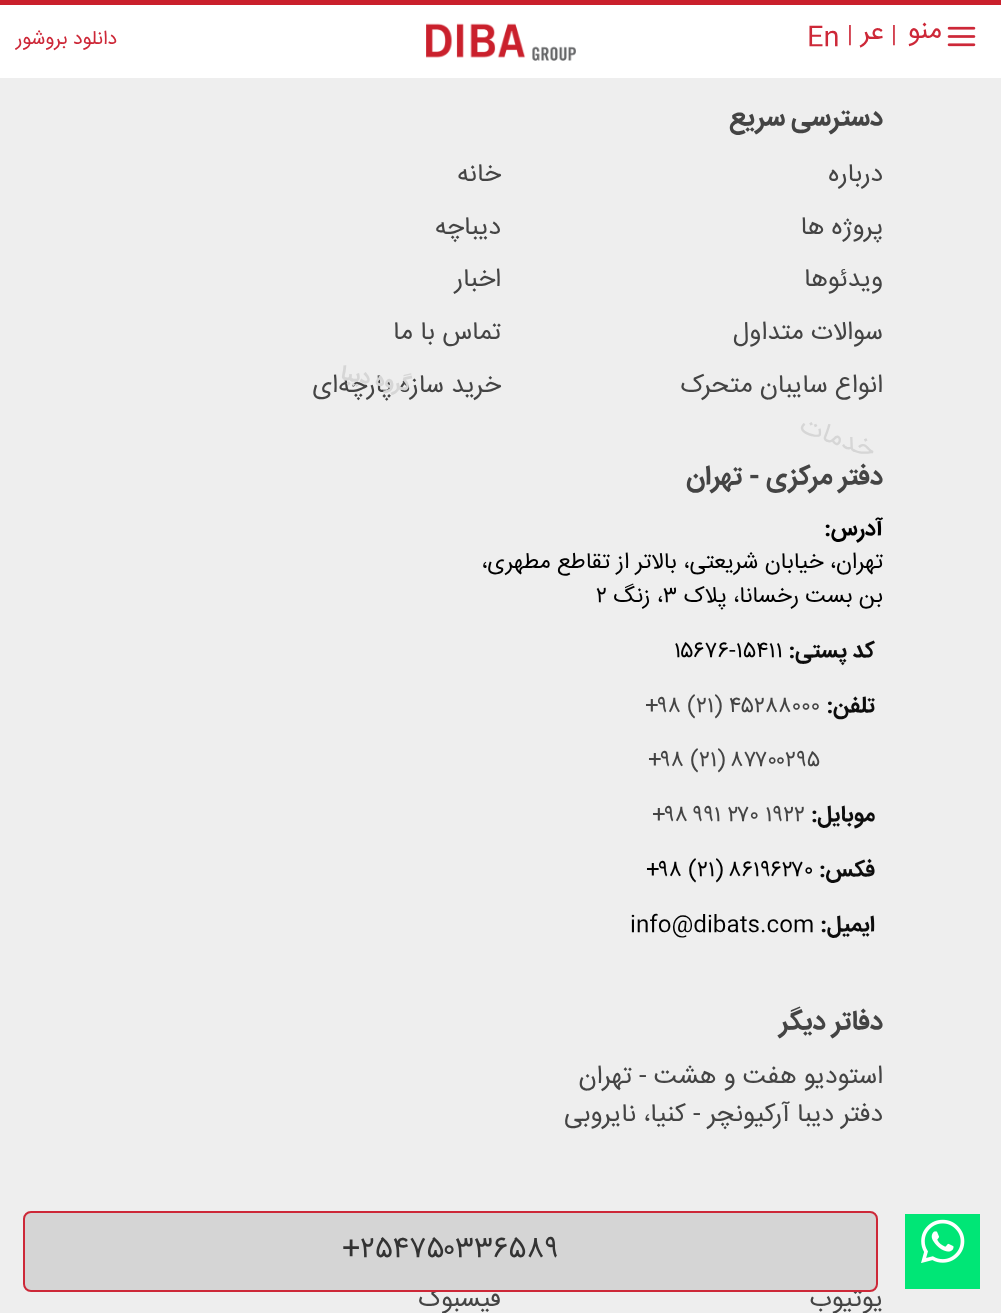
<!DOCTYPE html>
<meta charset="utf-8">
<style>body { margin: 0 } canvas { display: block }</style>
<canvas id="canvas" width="1001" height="1313"></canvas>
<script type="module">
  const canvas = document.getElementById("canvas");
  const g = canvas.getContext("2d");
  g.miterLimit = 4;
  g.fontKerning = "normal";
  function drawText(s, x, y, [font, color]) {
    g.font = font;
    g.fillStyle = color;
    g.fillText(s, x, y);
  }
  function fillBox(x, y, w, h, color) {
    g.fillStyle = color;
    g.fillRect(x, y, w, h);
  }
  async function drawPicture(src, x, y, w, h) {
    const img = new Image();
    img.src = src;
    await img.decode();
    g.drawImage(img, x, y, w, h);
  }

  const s1 = ["27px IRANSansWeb", "#CD2838"];
  const s2 = ["22.5px IRANSansWeb", "#CD2838"];
  const s3 = ["25.5px IRANSansWeb", "#444444"];
  const s4 = ["bold 27px IRANSansWeb", "#444444"];
  const s5 = ["19.5px IRANSansWeb", "#CD2838"];
  const s6 = ["bold 22.5px IRANSansWeb", "#000000"];
  const s7 = ["22.5px IRANSansWeb", "#000000"];
  const s8 = ["bold 22.5px IRANSansWeb", "#0D0D0D"];
  const s9 = ["22.5px IRANSansWeb", "#444444"];
  const s10 = ["30px IRANSansWeb", "#333333"];

  fillBox(0, 0, 1001, 1313, "#EEEEEE");
  fillBox(905, 1214, 75, 75, "#00E676");
  await drawPicture("pic1.png", 921, 1219, 44, 44);
  fillBox(0, 5, 1001, 73, "#FFFFFF");
  fillBox(0, 0, 1001, 5, "#CA202C");
  await drawPicture("pic2.png", 947, 26, 29, 21);
  g.direction = "rtl";
  drawText("منو", 942, 38, s1);
  g.direction = "ltr";
  drawText("|", 891, 41, s2);
  g.direction = "rtl";
  drawText("عر", 884, 39, s1);
  g.direction = "ltr";
  drawText("|", 847, 41, s2);
  drawText("En", 807, 45, s1);
  g.direction = "rtl";
  drawText("خرید سازه پارچه‌ای", 501, 392, s3);
  g.letterSpacing = "1.5px";
  g.wordSpacing = "-1px";
  g.font = "bold 21px IRANSansWeb";
  g.fillStyle = "#D6D6D6";
  g.save();
  g.translate(410, 391);
  g.rotate(10 * Math.PI / 180);
  g.fillText("گروه دیبا", 0, 0);
  g.restore();
  g.letterSpacing = "0px";
  g.wordSpacing = "0px";
  drawText("دفتر مرکزی - تهران", 883, 484, s4);
  g.font = "27px IRANSansWeb";
  g.fillStyle = "#D6D6D6";
  g.save();
  g.translate(871, 458);
  g.rotate(20 * Math.PI / 180);
  g.fillText("خدمات", 0, 0);
  g.restore();
  await drawPicture("pic3.png", 426, 23, 150, 38);
  drawText("دانلود بروشور", 117, 44, s5);
  drawText("دسترسی سریع", 883, 125, s4);
  drawText("درباره", 883, 181, s3);
  drawText("خانه", 501, 181, s3);
  drawText("پروژه ها", 883, 234, s3);
  drawText("دیباچه", 501, 234, s3);
  drawText("ویدئوها", 883, 286, s3);
  drawText("اخبار", 501, 286, s3);
  drawText("سوالات متداول", 883, 339, s3);
  drawText("تماس با ما", 501, 339, s3);
  drawText("انواع سایبان متحرک", 883, 392, s3);
  drawText("آدرس:", 883, 535, s6);
  drawText("تهران، خیابان شریعتی، بالاتر از تقاطع مطهری،", 883, 568, s7);
  drawText("بن بست رخسانا، پلاک", 883, 602, s7);
  g.direction = "ltr";
  drawText("۳", 663, 602, s7);
  g.direction = "rtl";
  drawText("، زنگ", 663, 602, s7);
  g.direction = "ltr";
  drawText("۲", 596, 602, s7);
  g.direction = "rtl";
  drawText("کد پستی:", 875, 657, s8);
  g.direction = "ltr";
  drawText("۱۵۶۷۶-۱۵۴۱۱", 674, 657, s7);
  g.direction = "rtl";
  drawText("تلفن:", 875, 712, s8);
  g.direction = "ltr";
  drawText("+۹۸ (۲۱) ۴۵۲۸۸۰۰۰", 645, 712, s9);
  drawText("+۹۸ (۲۱) ۸۷۷۰۰۲۹۵", 648, 766, s9);
  g.direction = "rtl";
  drawText("موبایل:", 875, 821, s8);
  g.direction = "ltr";
  drawText("+۹۸ ۹۹۱ ۲۷۰ ۱۹۲۲", 652, 821, s9);
  g.direction = "rtl";
  drawText("فکس:", 875, 876, s8);
  g.direction = "ltr";
  drawText("+۹۸ (۲۱) ۸۶۱۹۶۲۷۰", 646, 876, s7);
  g.direction = "rtl";
  drawText("ایمیل:", 875, 931, s8);
  g.direction = "ltr";
  drawText("info@dibats.com", 630, 931, s7);
  g.direction = "rtl";
  drawText("دفاتر دیگر", 883, 1029, s4);
  drawText("استودیو هفت و هشت - تهران", 883, 1083, s3);
  drawText("دفتر دیبا آرکیونچر - کنیا، نایروبی", 883, 1121, s3);
  drawText("یوتیوب", 883, 1306, s3);
  drawText("فیسبوک", 501, 1306, s3);
  g.fillStyle = "#D5D5D5";
  g.beginPath();
  g.roundRect(24, 1212, 853, 79, 7);
  g.fill();
  g.strokeStyle = "#CD2838";
  g.lineWidth = 2;
  g.stroke();
  g.direction = "ltr";
  drawText("+۲۵۴۷۵۰۳۳۶۵۸۹", 342, 1257, s10);
</script>
